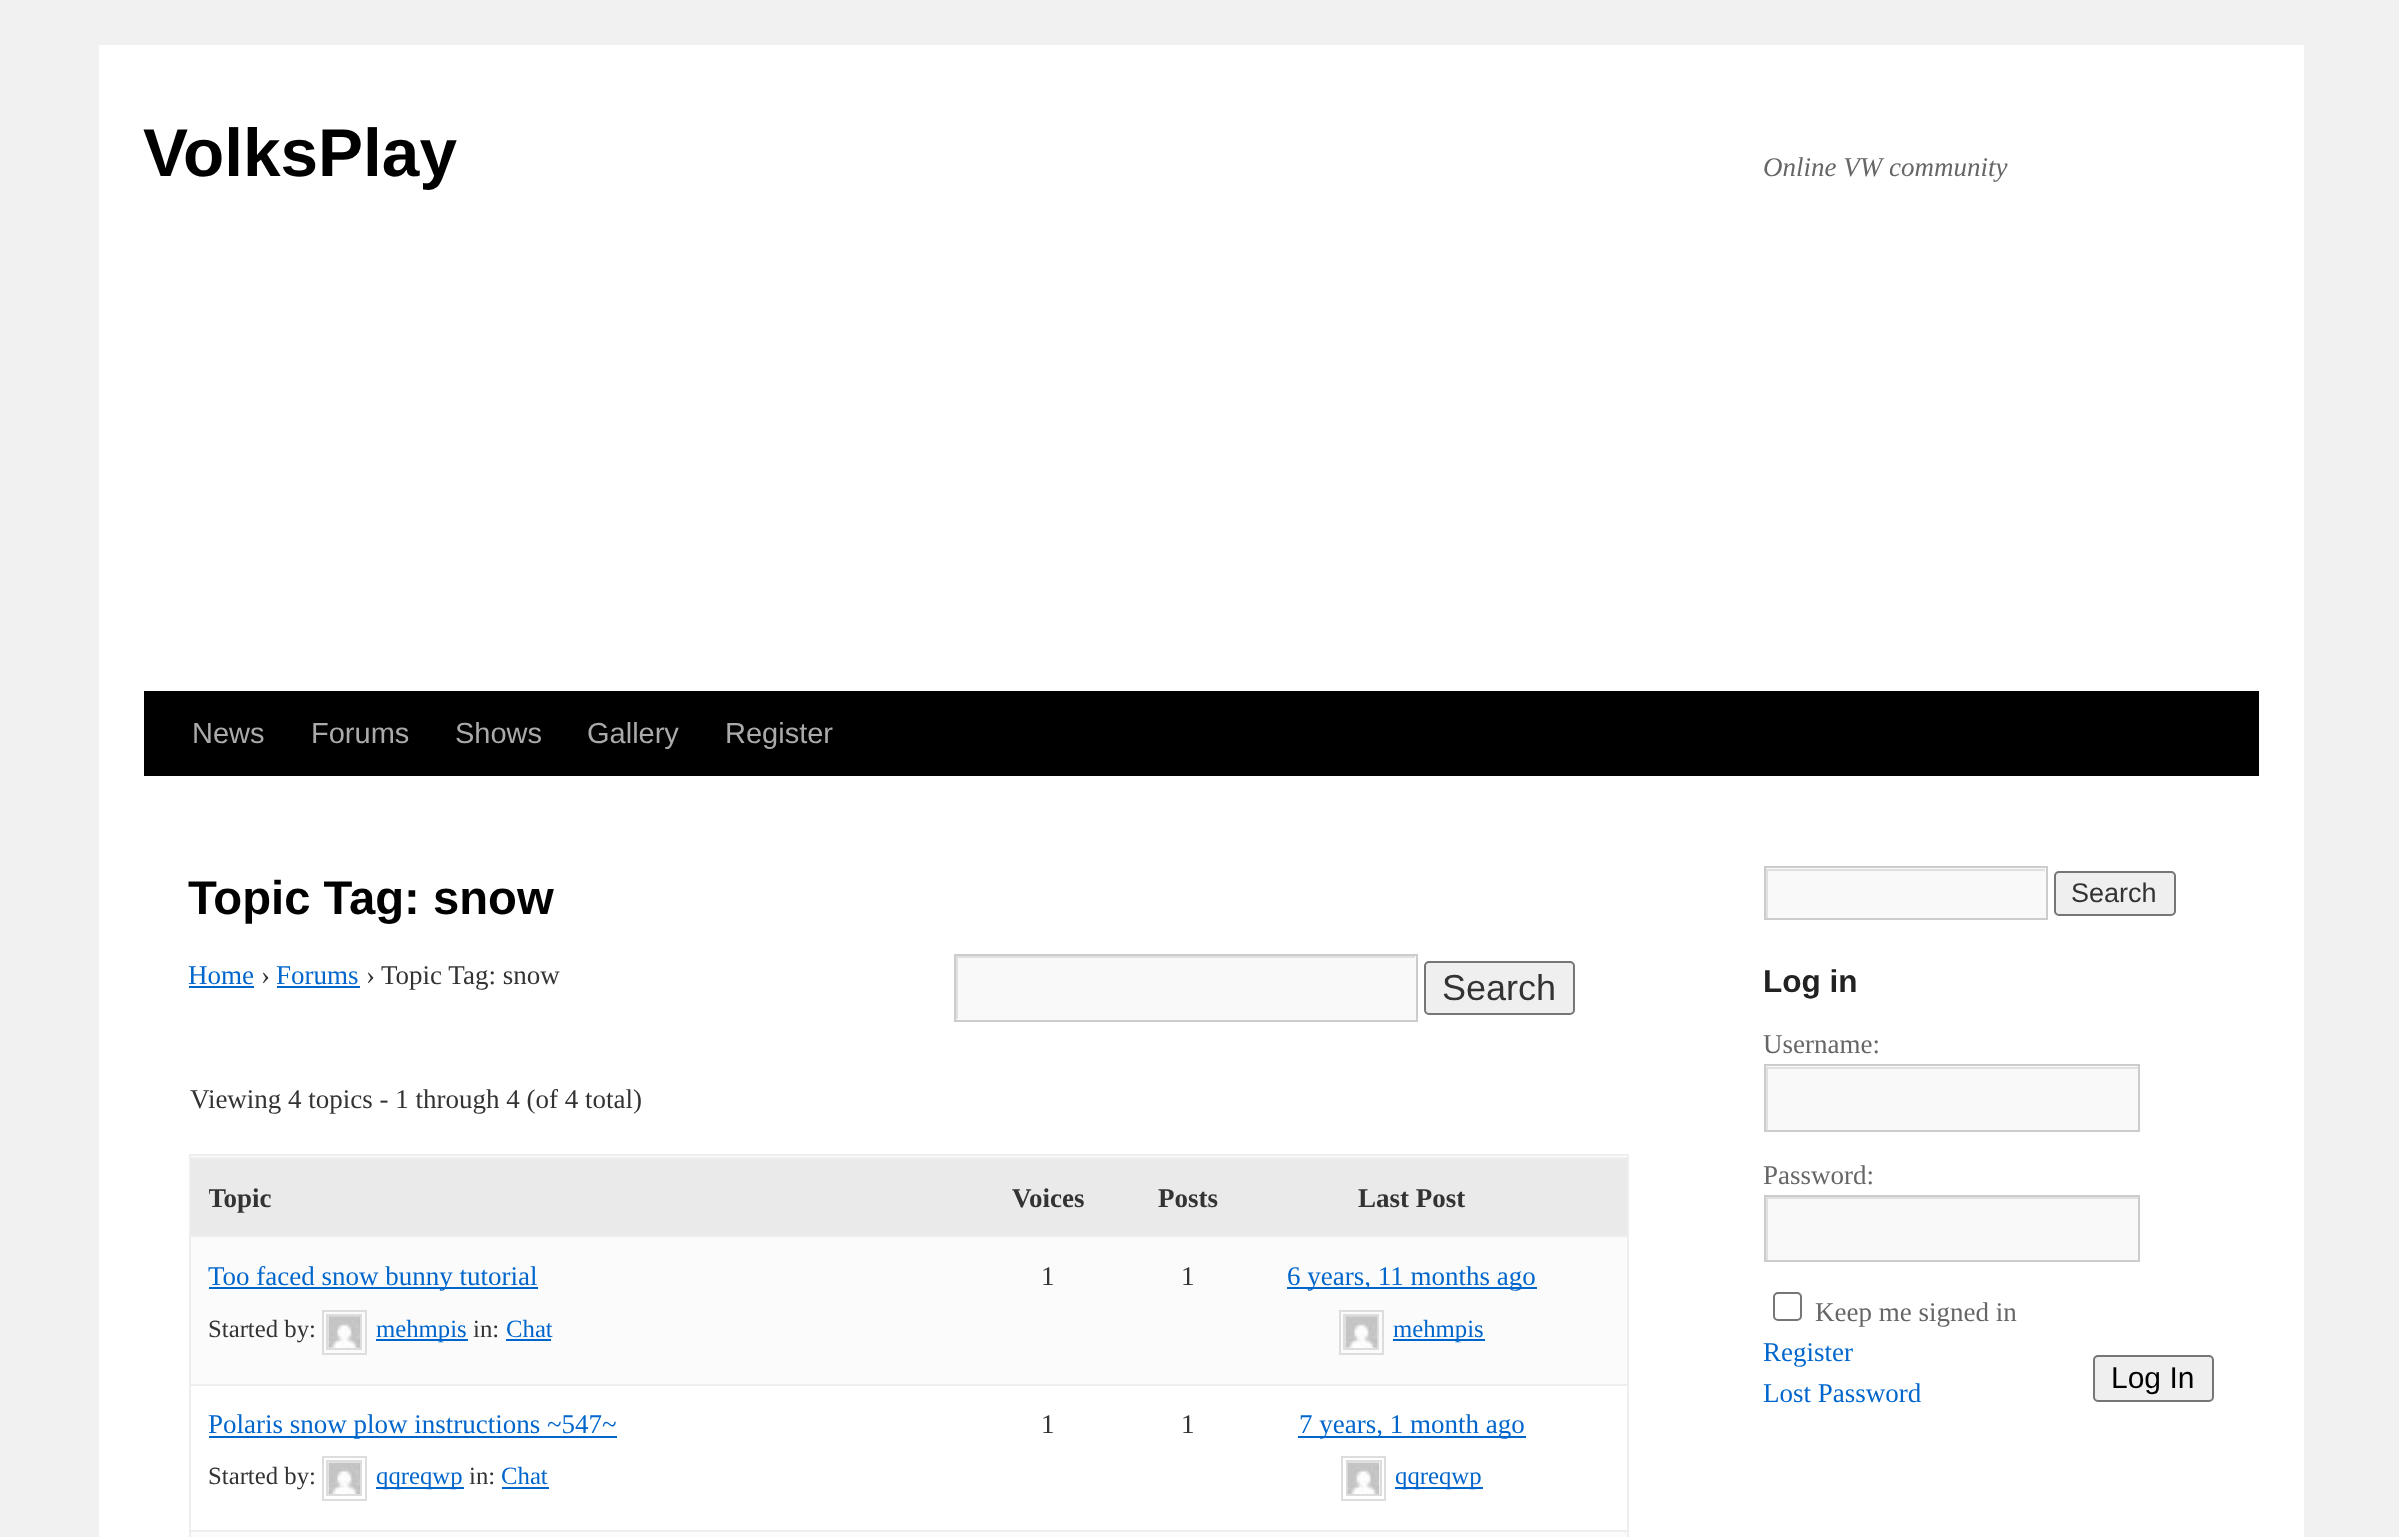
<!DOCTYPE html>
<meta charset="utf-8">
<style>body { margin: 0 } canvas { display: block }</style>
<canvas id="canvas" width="2399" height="1537"></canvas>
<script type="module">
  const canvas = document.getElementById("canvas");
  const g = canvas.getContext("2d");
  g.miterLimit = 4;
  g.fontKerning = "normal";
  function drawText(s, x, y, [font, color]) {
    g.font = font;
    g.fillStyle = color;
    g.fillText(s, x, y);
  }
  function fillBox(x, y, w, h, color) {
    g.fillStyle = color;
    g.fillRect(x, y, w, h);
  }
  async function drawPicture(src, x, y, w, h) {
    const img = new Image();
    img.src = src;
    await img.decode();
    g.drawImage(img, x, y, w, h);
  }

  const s1 = ["bold 67.5px Liberation Sans", "#000000"];
  const s2 = ["italic 27px Liberation Serif", "#666666"];
  const s3 = ["29px Liberation Sans", "#AAAAAA"];
  const s4 = ["bold 47.25px Liberation Sans", "#000000"];
  const s5 = ["27px Liberation Serif", "#0066CC"];
  const s6 = ["27px Liberation Serif", "#333333"];
  const s7 = ["36px Liberation Sans", "#333333"];
  const s8 = ["bold 27px Liberation Serif", "#333333"];
  const s9 = ["24.75px Liberation Serif", "#333333"];
  const s10 = ["24.75px Liberation Serif", "#0066CC"];
  const s11 = ["27px Liberation Sans", "#333333"];
  const s12 = ["bold 31.5px Liberation Sans", "#222222"];
  const s13 = ["27px Liberation Serif", "#666666"];
  const s14 = ["30px Liberation Sans", "#000000"];

  fillBox(0, 0, 2399, 1537, "#F1F1F1");
  fillBox(99, 45, 2205, 1492, "#FFFFFF");
  drawText("VolksPlay", 143, 176, s1);
  drawText("Online VW community", 1763, 176, s2);
  fillBox(144, 691, 2115, 85, "#000000");
  drawText("News", 192, 743, s3);
  drawText("Forums", 311, 743, s3);
  drawText("Shows", 455, 743, s3);
  drawText("Gallery", 587, 743, s3);
  drawText("Register", 725, 743, s3);
  drawText("Topic Tag: snow", 188, 914, s4);
  drawText("Home", 188, 984, s5);
  fillBox(189, 986, 65, 2, "#0066CC");
  drawText("›", 261, 984, s6);
  drawText("Forums", 276, 984, s5);
  fillBox(277, 986, 83, 2, "#0066CC");
  drawText("›", 366, 984, s6);
  drawText("Topic Tag: snow", 381, 984, s6);
  fillBox(956, 956, 460, 64, "#F9F9F9");
  g.save();
  g.beginPath();
  g.rect(956, 956, 459, 63);
  g.clip();
  g.fillStyle = "#E0E0E0";
  g.beginPath();
  g.moveTo(734, 734);
  g.lineTo(1638, 734);
  g.lineTo(1638, 1242);
  g.lineTo(734, 1242);
  g.closePath();
  g.moveTo(958, 958);
  g.lineTo(1418, 958);
  g.lineTo(1418, 1022);
  g.lineTo(958, 1022);
  g.closePath();
  g.fill("evenodd");
  g.restore();
  g.strokeStyle = "#CCCCCC";
  g.lineWidth = 2;
  g.strokeRect(955, 955, 462, 66);
  g.fillStyle = "#EFEFEF";
  g.beginPath();
  g.roundRect(1425, 962, 149, 52, 4);
  g.fill();
  g.strokeStyle = "#767676";
  g.stroke();
  drawText("Search", 1442, 1000, s7);
  drawText("Viewing 4 topics - 1 through 4 (of 4 total)", 190, 1108, s6);
  g.strokeStyle = "#EEEEEE";
  g.strokeRect(190, 1155, 1438, 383);
  fillBox(191, 1159, 1436, 76, "#EAEAEA");
  fillBox(191, 1157, 1436, 2, "#EEEEEE");
  g.save();
  g.beginPath();
  g.rect(209, 1177, 1400, 40);
  g.clip();
  drawText("Topic", 208, 1207, s8);
  g.restore();
  drawText("Voices", 1012, 1207, s8);
  drawText("Posts", 1158, 1207, s8);
  drawText("Last Post", 1358, 1207, s8);
  fillBox(191, 1237, 1436, 147, "#FBFBFB");
  fillBox(191, 1235, 1436, 2, "#EEEEEE");
  fillBox(209, 1287, 329, 2, "#0066CC");
  drawText("Too faced snow bunny tutorial", 208, 1285, s5);
  drawText("Started by:", 208, 1337, s9);
  g.strokeStyle = "#DDDDDD";
  g.strokeRect(323, 1311, 43, 43);
  g.strokeRect(327, 1315, 34, 34);
  await drawPicture("pic1.png", 328, 1316, 32, 32);
  fillBox(376, 1339, 92, 2, "#0066CC");
  drawText("mehmpis", 376, 1337, s10);
  drawText("in:", 473, 1337, s9);
  drawText("Chat", 506, 1337, s10);
  fillBox(506, 1339, 45, 2, "#0066CC");
  drawText("1", 1041, 1285, s6);
  drawText("1", 1181, 1285, s6);
  fillBox(1287, 1287, 250, 2, "#0066CC");
  drawText("6 years, 11 months ago", 1287, 1285, s5);
  g.strokeRect(1340, 1311, 43, 43);
  g.strokeRect(1344, 1315, 34, 34);
  await drawPicture("pic2.png", 1345, 1316, 32, 32);
  fillBox(1393, 1339, 92, 2, "#0066CC");
  drawText("mehmpis", 1393, 1337, s10);
  fillBox(191, 1384, 1436, 2, "#EEEEEE");
  fillBox(209, 1436, 408, 2, "#0066CC");
  drawText("Polaris snow plow instructions ~547~", 208, 1433, s5);
  drawText("Started by:", 208, 1484, s9);
  g.strokeRect(323, 1457, 43, 43);
  g.strokeRect(327, 1461, 34, 34);
  await drawPicture("pic3.png", 328, 1462, 32, 32);
  fillBox(376, 1487, 88, 2, "#0066CC");
  drawText("qqreqwp", 376, 1484, s10);
  drawText("in:", 469, 1484, s9);
  drawText("Chat", 501, 1484, s10);
  fillBox(502, 1487, 47, 2, "#0066CC");
  drawText("1", 1041, 1433, s6);
  drawText("1", 1181, 1433, s6);
  fillBox(1298, 1436, 228, 2, "#0066CC");
  drawText("7 years, 1 month ago", 1299, 1433, s5);
  g.strokeRect(1342, 1457, 43, 43);
  g.strokeRect(1347, 1461, 34, 34);
  await drawPicture("pic4.png", 1347, 1462, 33, 32);
  fillBox(1395, 1487, 88, 2, "#0066CC");
  drawText("qqreqwp", 1395, 1484, s10);
  fillBox(191, 1532, 1436, 5, "#FBFBFB");
  fillBox(191, 1530, 1436, 2, "#EEEEEE");
  fillBox(1766, 868, 280, 50, "#F9F9F9");
  g.save();
  g.beginPath();
  g.rect(1766, 869, 279, 49);
  g.clip();
  g.fillStyle = "#E0E0E0";
  g.beginPath();
  g.moveTo(1544, 646);
  g.lineTo(2268, 646);
  g.lineTo(2268, 1141);
  g.lineTo(1544, 1141);
  g.closePath();
  g.moveTo(1768, 871);
  g.lineTo(2048, 871);
  g.lineTo(2048, 920);
  g.lineTo(1768, 920);
  g.closePath();
  g.fill("evenodd");
  g.restore();
  g.strokeStyle = "#CCCCCC";
  g.strokeRect(1765, 867, 282, 52);
  g.fillStyle = "#EFEFEF";
  g.beginPath();
  g.roundRect(2055, 872, 120, 43, 4);
  g.fill();
  g.strokeStyle = "#767676";
  g.stroke();
  drawText("Search", 2071, 902, s11);
  drawText("Log in", 1763, 992, s12);
  drawText("Username:", 1763, 1053, s13);
  fillBox(1766, 1066, 372, 64, "#F9F9F9");
  g.save();
  g.beginPath();
  g.rect(1766, 1067, 372, 63);
  g.clip();
  g.fillStyle = "#E0E0E0";
  g.beginPath();
  g.moveTo(1544, 844);
  g.lineTo(2360, 844);
  g.lineTo(2360, 1352);
  g.lineTo(1544, 1352);
  g.closePath();
  g.moveTo(1768, 1069);
  g.lineTo(2140, 1069);
  g.lineTo(2140, 1132);
  g.lineTo(1768, 1132);
  g.closePath();
  g.fill("evenodd");
  g.restore();
  g.strokeStyle = "#CCCCCC";
  g.strokeRect(1765, 1065, 374, 66);
  drawText("Password:", 1763, 1184, s13);
  fillBox(1768, 1199, 370, 61, "#F9F9F9");
  g.save();
  g.beginPath();
  g.rect(1766, 1197, 372, 63);
  g.clip();
  g.fillStyle = "#E0E0E0";
  g.beginPath();
  g.moveTo(1544, 974);
  g.lineTo(2360, 974);
  g.lineTo(2360, 1483);
  g.lineTo(1544, 1483);
  g.closePath();
  g.moveTo(1768, 1199);
  g.lineTo(2140, 1199);
  g.lineTo(2140, 1262);
  g.lineTo(1768, 1262);
  g.closePath();
  g.fill("evenodd");
  g.restore();
  g.strokeRect(1765, 1196, 374, 65);
  g.beginPath();
  g.roundRect(1774, 1293, 27, 27, 4);
  g.strokeStyle = "#767676";
  g.stroke();
  drawText("Keep me signed in", 1815, 1321, s13);
  drawText("Register", 1763, 1361, s5);
  drawText("Lost Password", 1763, 1402, s5);
  g.fillStyle = "#EFEFEF";
  g.beginPath();
  g.roundRect(2094, 1356, 119, 45, 4);
  g.fill();
  g.stroke();
  drawText("Log In", 2111, 1388, s14);
</script>
